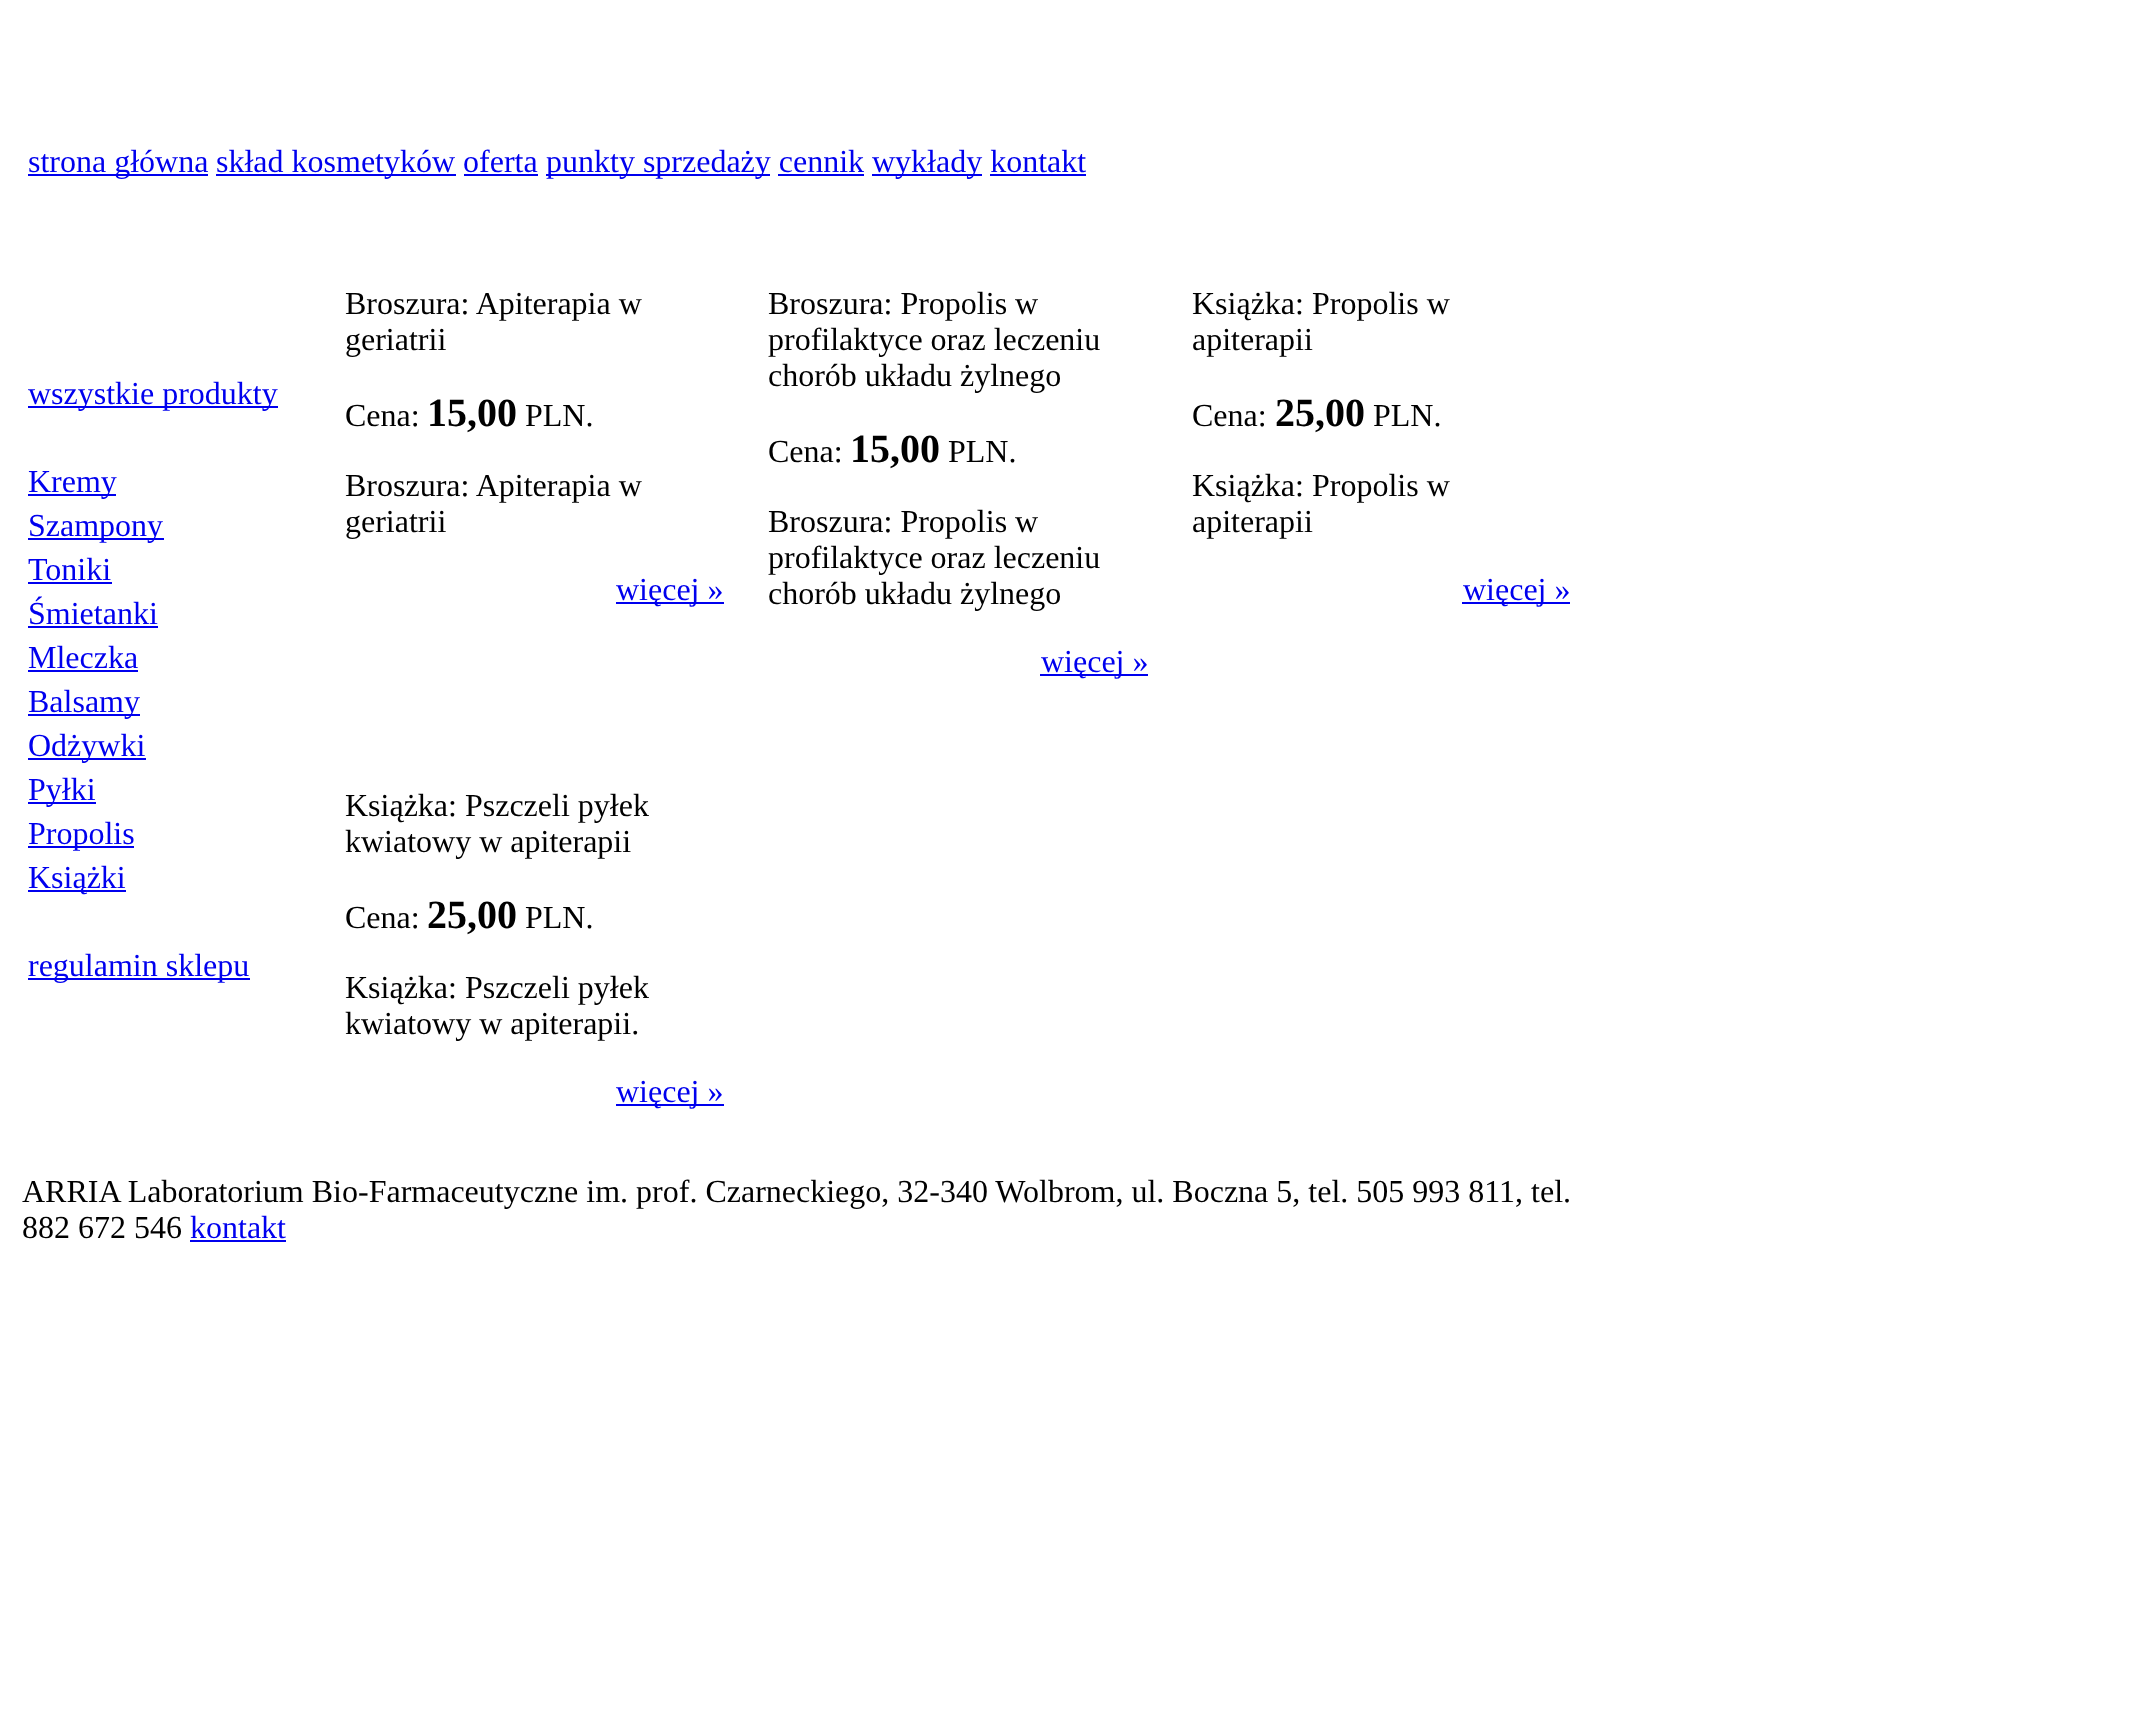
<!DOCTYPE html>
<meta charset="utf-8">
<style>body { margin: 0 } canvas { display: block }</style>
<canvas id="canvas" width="2135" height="1718"></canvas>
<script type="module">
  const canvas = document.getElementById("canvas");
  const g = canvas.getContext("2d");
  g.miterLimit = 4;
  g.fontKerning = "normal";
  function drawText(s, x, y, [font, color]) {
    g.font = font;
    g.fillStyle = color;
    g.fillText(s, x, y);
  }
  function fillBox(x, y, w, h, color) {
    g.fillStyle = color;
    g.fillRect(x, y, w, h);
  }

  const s1 = ["32px Liberation Serif", "#0000EE"];
  const s2 = ["32px Liberation Serif", "#000000"];
  const s3 = ["bold 40px Liberation Serif", "#000000"];

  fillBox(0, 0, 2135, 1718, "#FFFFFF");
  fillBox(28, 174, 180, 2, "#0000EE");
  drawText("strona główna", 28, 172, s1);
  fillBox(216, 174, 240, 2, "#0000EE");
  drawText("skład kosmetyków oferta", 216, 172, s1);
  fillBox(546, 174, 224, 2, "#0000EE");
  drawText("punkty sprzedaży cennik", 546, 172, s1);
  fillBox(872, 174, 110, 2, "#0000EE");
  drawText("wykłady kontakt", 872, 172, s1);
  fillBox(464, 174, 74, 2, "#0000EE");
  fillBox(778, 174, 86, 2, "#0000EE");
  fillBox(990, 174, 96, 2, "#0000EE");
  fillBox(28, 406, 250, 2, "#0000EE");
  drawText("wszystkie produkty", 28, 404, s1);
  fillBox(28, 494, 88, 2, "#0000EE");
  drawText("Kremy", 28, 492, s1);
  fillBox(28, 538, 136, 2, "#0000EE");
  drawText("Szampony", 28, 536, s1);
  drawText("Toniki", 28, 580, s1);
  fillBox(28, 582, 84, 2, "#0000EE");
  drawText("Śmietanki", 28, 624, s1);
  fillBox(28, 626, 130, 2, "#0000EE");
  drawText("Mleczka", 28, 668, s1);
  fillBox(28, 670, 110, 2, "#0000EE");
  fillBox(28, 714, 112, 2, "#0000EE");
  drawText("Balsamy", 28, 712, s1);
  fillBox(28, 758, 118, 2, "#0000EE");
  drawText("Odżywki", 28, 756, s1);
  fillBox(28, 802, 68, 2, "#0000EE");
  drawText("Pyłki", 28, 800, s1);
  fillBox(28, 846, 106, 2, "#0000EE");
  drawText("Propolis", 28, 844, s1);
  fillBox(28, 890, 98, 2, "#0000EE");
  drawText("Książki", 28, 888, s1);
  fillBox(28, 978, 222, 2, "#0000EE");
  drawText("regulamin sklepu", 28, 976, s1);
  drawText("Broszura: Apiterapia w", 345, 314, s2);
  drawText("geriatrii", 345, 350, s2);
  drawText("Cena:", 345, 426, s2);
  drawText("15,00", 427, 426, s3);
  drawText("PLN.", 525, 426, s2);
  drawText("Broszura: Apiterapia w", 345, 496, s2);
  drawText("geriatrii", 345, 532, s2);
  fillBox(616, 602, 108, 2, "#0000EE");
  drawText("więcej »", 616, 600, s1);
  drawText("Broszura: Propolis w", 768, 314, s2);
  drawText("profilaktyce oraz leczeniu", 768, 350, s2);
  drawText("chorób układu żylnego", 768, 386, s2);
  drawText("Cena:", 768, 462, s2);
  drawText("15,00", 850, 462, s3);
  drawText("PLN.", 948, 462, s2);
  drawText("Broszura: Propolis w", 768, 532, s2);
  drawText("profilaktyce oraz leczeniu", 768, 568, s2);
  drawText("chorób układu żylnego", 768, 604, s2);
  fillBox(1040, 674, 108, 2, "#0000EE");
  drawText("więcej »", 1041, 672, s1);
  drawText("Książka: Propolis w", 1192, 314, s2);
  drawText("apiterapii", 1192, 350, s2);
  drawText("Cena:", 1192, 426, s2);
  drawText("25,00", 1275, 426, s3);
  drawText("PLN.", 1373, 426, s2);
  drawText("Książka: Propolis w", 1192, 496, s2);
  drawText("apiterapii", 1192, 532, s2);
  fillBox(1462, 602, 108, 2, "#0000EE");
  drawText("więcej »", 1463, 600, s1);
  drawText("Książka: Pszczeli pyłek", 345, 816, s2);
  drawText("kwiatowy w apiterapii", 345, 852, s2);
  drawText("Cena:", 345, 928, s2);
  drawText("25,00", 427, 928, s3);
  drawText("PLN.", 525, 928, s2);
  drawText("Książka: Pszczeli pyłek", 345, 998, s2);
  drawText("kwiatowy w apiterapii.", 345, 1034, s2);
  fillBox(616, 1104, 108, 2, "#0000EE");
  drawText("więcej »", 616, 1102, s1);
  drawText("ARRIA Laboratorium Bio-Farmaceutyczne im. prof. Czarneckiego, 32-340 Wolbrom, ul. Boczna 5, tel. 505 993 811, tel.", 22, 1202, s2);
  drawText("882 672 546", 22, 1238, s2);
  drawText("kontakt", 190, 1238, s1);
  fillBox(190, 1240, 96, 2, "#0000EE");
</script>
